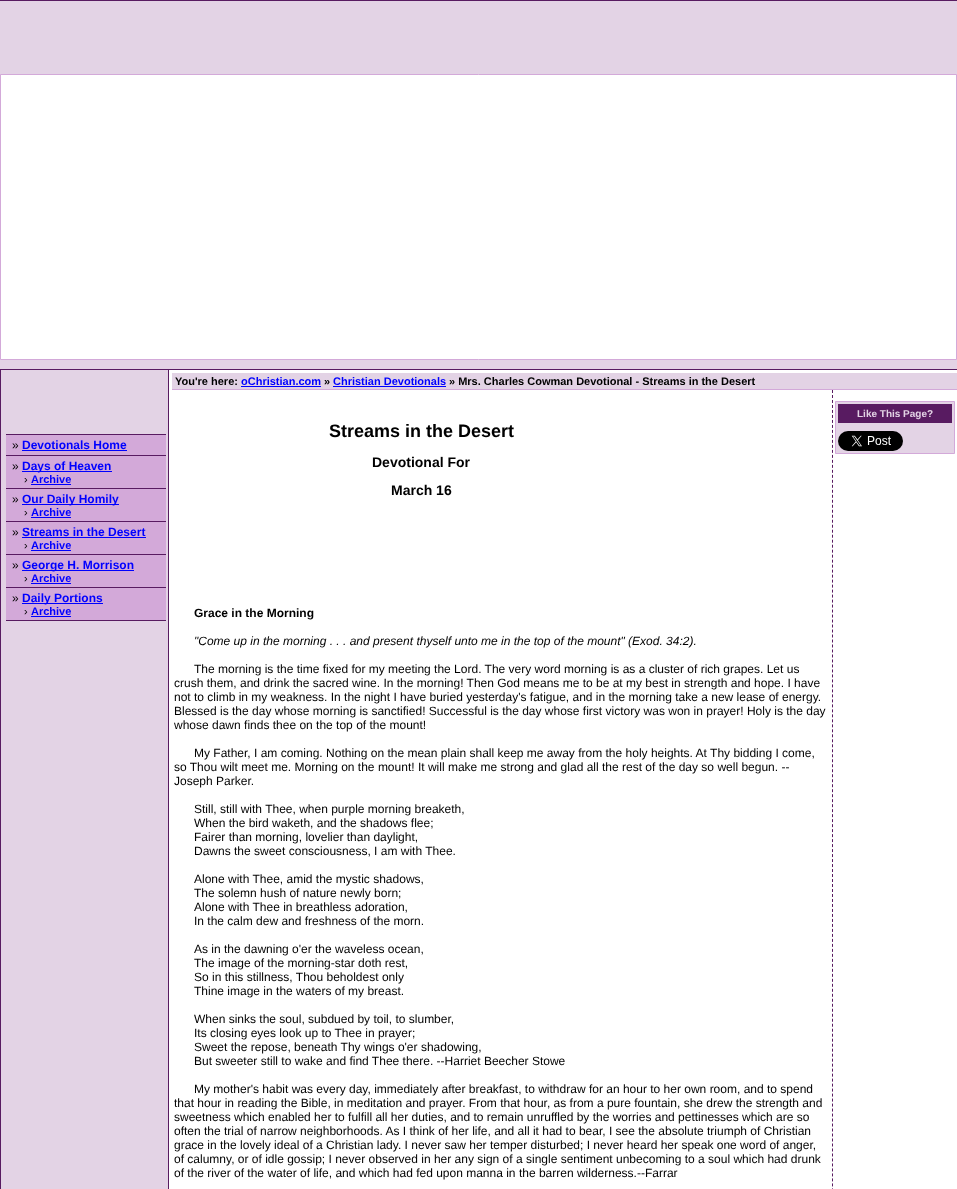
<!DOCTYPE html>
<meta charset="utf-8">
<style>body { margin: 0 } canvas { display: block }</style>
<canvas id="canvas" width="957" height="1189"></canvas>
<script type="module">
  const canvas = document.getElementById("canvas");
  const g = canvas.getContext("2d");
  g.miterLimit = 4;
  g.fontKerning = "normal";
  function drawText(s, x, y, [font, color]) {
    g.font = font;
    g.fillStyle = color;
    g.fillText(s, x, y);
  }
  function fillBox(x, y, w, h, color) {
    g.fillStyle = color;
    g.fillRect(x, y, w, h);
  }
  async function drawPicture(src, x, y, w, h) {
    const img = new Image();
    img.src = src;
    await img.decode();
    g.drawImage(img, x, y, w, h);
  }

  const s1 = ["12px Liberation Sans", "#000000"];
  const s2 = ["bold 12px Liberation Sans", "#0000FF"];
  const s3 = ["11px Liberation Sans", "#000000"];
  const s4 = ["bold 11px Liberation Sans", "#0000FF"];
  const s5 = ["bold 11px Liberation Sans", "#000000"];
  const s6 = ["bold 10px Liberation Sans", "#E3D3E5"];
  const s7 = ["bold 18px Liberation Sans", "#000000"];
  const s8 = ["bold 14px Liberation Sans", "#000000"];
  const s9 = ["bold 12px Liberation Sans", "#000000"];
  const s10 = ["italic 12px Liberation Sans", "#000000"];

  fillBox(0, 0, 957, 1189, "#FFFFFF");
  fillBox(0, 1, 957, 368, "#E3D3E5");
  fillBox(0, 0, 957, 1, "#581B61");
  fillBox(0, 369, 957, 1, "#581B61");
  g.fillStyle = "#FFFFFF";
  g.beginPath();
  g.rect(0.5, 74.5, 956, 285);
  g.fill();
  g.strokeStyle = "#D3A9D9";
  g.stroke();
  fillBox(1, 370, 167, 819, "#E3D3E5");
  fillBox(168, 370, 1, 819, "#581B61");
  fillBox(0, 370, 1, 819, "#581B61");
  fillBox(6, 435, 160, 185, "#D3A9D9");
  fillBox(6, 434, 160, 1, "#581B61");
  fillBox(6, 455, 160, 1, "#581B61");
  drawText("»", 12, 449, s1);
  drawText("Devotionals Home", 22, 449, s2);
  fillBox(22, 450, 105, 1, "#0000FF");
  fillBox(6, 488, 160, 1, "#581B61");
  drawText("»", 12, 470, s1);
  fillBox(22, 471, 90, 1, "#0000FF");
  drawText("Days of Heaven", 22, 470, s2);
  drawText("›", 24, 483, s3);
  drawText("Archive", 31, 483, s4);
  fillBox(31, 484, 40, 1, "#0000FF");
  fillBox(6, 521, 160, 1, "#581B61");
  drawText("»", 12, 503, s1);
  fillBox(22, 504, 97, 1, "#0000FF");
  drawText("Our Daily Homily", 22, 503, s2);
  drawText("›", 24, 516, s3);
  drawText("Archive", 31, 516, s4);
  fillBox(31, 517, 40, 1, "#0000FF");
  fillBox(6, 554, 160, 1, "#581B61");
  drawText("»", 12, 536, s1);
  drawText("Streams in the Desert", 22, 536, s2);
  fillBox(22, 537, 124, 1, "#0000FF");
  drawText("›", 24, 549, s3);
  drawText("Archive", 31, 549, s4);
  fillBox(31, 550, 40, 1, "#0000FF");
  fillBox(6, 587, 160, 1, "#581B61");
  drawText("»", 12, 569, s1);
  fillBox(22, 570, 112, 1, "#0000FF");
  drawText("George H. Morrison", 22, 569, s2);
  drawText("›", 24, 582, s3);
  drawText("Archive", 31, 582, s4);
  fillBox(31, 583, 40, 1, "#0000FF");
  fillBox(6, 620, 160, 1, "#581B61");
  drawText("»", 12, 602, s1);
  fillBox(22, 603, 81, 1, "#0000FF");
  drawText("Daily Portions", 22, 602, s2);
  drawText("›", 24, 615, s3);
  drawText("Archive", 31, 615, s4);
  fillBox(31, 616, 40, 1, "#0000FF");
  fillBox(172, 373, 785, 16, "#E3D3E5");
  fillBox(172, 389, 785, 1, "#D3A9D9");
  drawText("You're here:", 175, 385, s5);
  drawText("oChristian.com", 241, 385, s4);
  fillBox(241, 386, 80, 1, "#0000FF");
  drawText("»", 324, 385, s5);
  drawText("Christian Devotionals", 333, 385, s4);
  fillBox(333, 386, 113, 1, "#0000FF");
  drawText("» Mrs. Charles Cowman Devotional - Streams in the Desert", 449, 385, s5);
  g.beginPath();
  g.moveTo(832.5, 390);
  g.lineTo(832.5, 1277);
  g.strokeStyle = "#581B61";
  g.setLineDash([3, 1.99]);
  g.stroke();
  g.fillStyle = "#E3D3E5";
  g.beginPath();
  g.rect(835.5, 401.5, 119, 52);
  g.fill();
  g.strokeStyle = "#D3A9D9";
  g.setLineDash([]);
  g.stroke();
  fillBox(838, 404, 114, 19, "#581B61");
  drawText("Like This Page?", 857, 417, s6);
  await drawPicture("pic1.png", 838, 431, 65, 20);
  drawText("Streams in the Desert", 329, 437, s7);
  drawText("Devotional For", 372, 467, s8);
  drawText("March 16", 391, 495, s8);
  drawText("Grace in the Morning", 194, 617, s9);
  drawText("\"Come up in the morning . . . and present thyself unto me in the top of the mount\" (Exod. 34:2).", 194, 645, s10);
  drawText("The morning is the time fixed for my meeting the Lord. The very word morning is as a cluster of rich grapes. Let us", 194, 673, s1);
  drawText("crush them, and drink the sacred wine. In the morning! Then God means me to be at my best in strength and hope. I have", 174, 687, s1);
  drawText("not to climb in my weakness. In the night I have buried yesterday's fatigue, and in the morning take a new lease of energy.", 174, 701, s1);
  drawText("Blessed is the day whose morning is sanctified! Successful is the day whose first victory was won in prayer! Holy is the day", 174, 715, s1);
  drawText("whose dawn finds thee on the top of the mount!", 174, 729, s1);
  drawText("My Father, I am coming. Nothing on the mean plain shall keep me away from the holy heights. At Thy bidding I come,", 194, 757, s1);
  drawText("so Thou wilt meet me. Morning on the mount! It will make me strong and glad all the rest of the day so well begun. --", 174, 771, s1);
  drawText("Joseph Parker.", 174, 785, s1);
  drawText("Still, still with Thee, when purple morning breaketh,", 194, 813, s1);
  drawText("When the bird waketh, and the shadows flee;", 194, 827, s1);
  drawText("Fairer than morning, lovelier than daylight,", 194, 841, s1);
  drawText("Dawns the sweet consciousness, I am with Thee.", 194, 855, s1);
  drawText("Alone with Thee, amid the mystic shadows,", 194, 883, s1);
  drawText("The solemn hush of nature newly born;", 194, 897, s1);
  drawText("Alone with Thee in breathless adoration,", 194, 911, s1);
  drawText("In the calm dew and freshness of the morn.", 194, 925, s1);
  drawText("As in the dawning o'er the waveless ocean,", 194, 953, s1);
  drawText("The image of the morning-star doth rest,", 194, 967, s1);
  drawText("So in this stillness, Thou beholdest only", 194, 981, s1);
  drawText("Thine image in the waters of my breast.", 194, 995, s1);
  drawText("When sinks the soul, subdued by toil, to slumber,", 194, 1023, s1);
  drawText("Its closing eyes look up to Thee in prayer;", 194, 1037, s1);
  drawText("Sweet the repose, beneath Thy wings o'er shadowing,", 194, 1051, s1);
  drawText("But sweeter still to wake and find Thee there. --Harriet Beecher Stowe", 194, 1065, s1);
  drawText("My mother's habit was every day, immediately after breakfast, to withdraw for an hour to her own room, and to spend", 194, 1093, s1);
  drawText("that hour in reading the Bible, in meditation and prayer. From that hour, as from a pure fountain, she drew the strength and", 174, 1107, s1);
  drawText("sweetness which enabled her to fulfill all her duties, and to remain unruffled by the worries and pettinesses which are so", 174, 1121, s1);
  drawText("often the trial of narrow neighborhoods. As I think of her life, and all it had to bear, I see the absolute triumph of Christian", 174, 1135, s1);
  drawText("grace in the lovely ideal of a Christian lady. I never saw her temper disturbed; I never heard her speak one word of anger,", 174, 1149, s1);
  drawText("of calumny, or of idle gossip; I never observed in her any sign of a single sentiment unbecoming to a soul which had drunk", 174, 1163, s1);
  drawText("of the river of the water of life, and which had fed upon manna in the barren wilderness.--Farrar", 174, 1177, s1);
</script>
